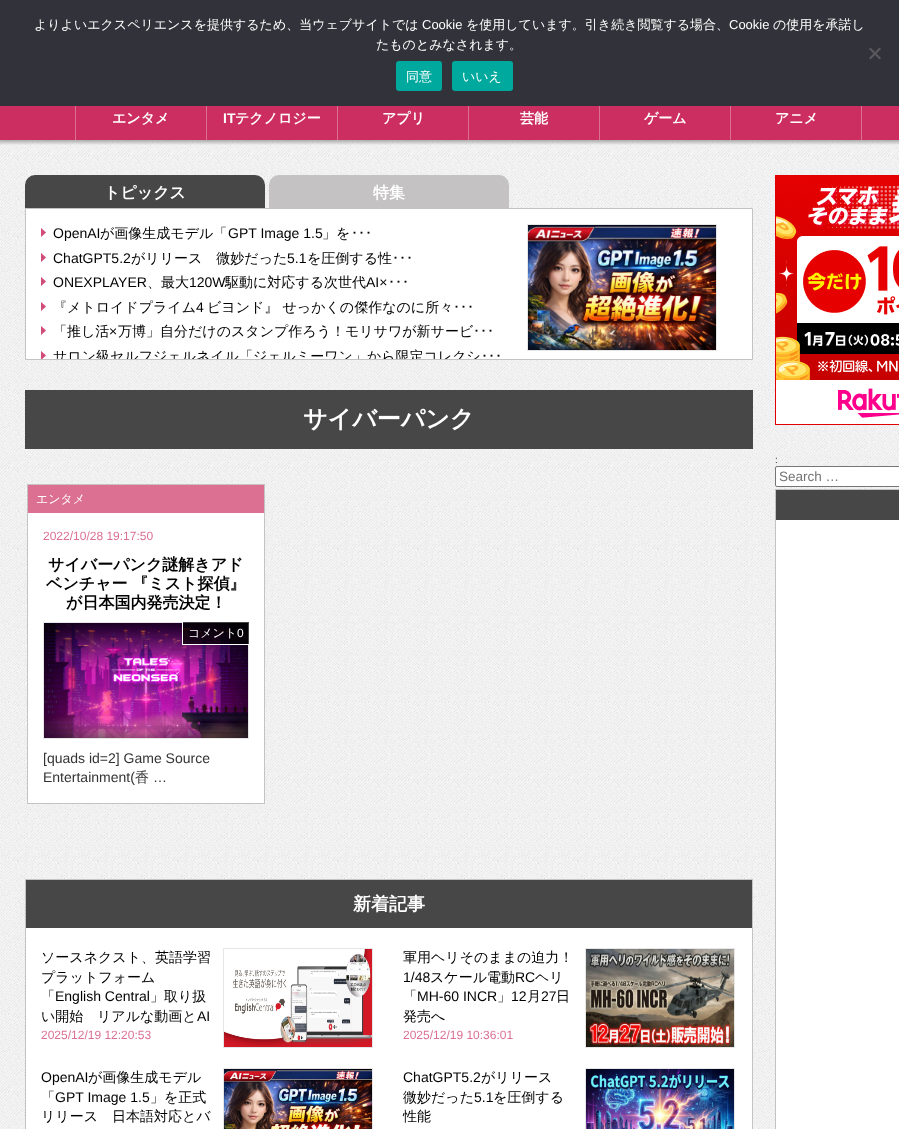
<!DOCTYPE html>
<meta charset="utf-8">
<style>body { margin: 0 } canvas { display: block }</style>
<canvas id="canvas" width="899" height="1129"></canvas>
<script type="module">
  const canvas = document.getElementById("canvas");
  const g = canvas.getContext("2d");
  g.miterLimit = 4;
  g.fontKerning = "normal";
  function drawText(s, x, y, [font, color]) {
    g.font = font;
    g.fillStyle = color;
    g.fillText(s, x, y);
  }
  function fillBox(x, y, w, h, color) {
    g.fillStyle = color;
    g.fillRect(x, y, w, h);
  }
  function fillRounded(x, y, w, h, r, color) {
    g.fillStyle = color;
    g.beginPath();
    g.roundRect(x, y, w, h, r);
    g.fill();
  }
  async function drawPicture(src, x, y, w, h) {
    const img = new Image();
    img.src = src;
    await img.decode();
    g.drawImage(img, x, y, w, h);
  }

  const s1 = ["500 13px WenQuanYi Zen Hei", "#FFFFFF"];
  const s2 = ["13px Liberation Sans", "#FFFFFF"];
  const s3 = ["bold 14px WenQuanYi Zen Hei", "#FFFFFF"];
  const s4 = ["bold 14px Liberation Sans", "#FFFFFF"];
  const s5 = ["bold 16px WenQuanYi Zen Hei", "#FFFFFF"];
  const s6 = ["14px Liberation Sans", "#000000"];
  const s7 = ["500 14px WenQuanYi Zen Hei", "#000000"];
  const s8 = ["14px IPAPGothic", "#000000"];
  const s9 = ["bold 24px WenQuanYi Zen Hei", "#FFFFFF"];
  const s10 = ["500 12px WenQuanYi Zen Hei", "#FFFFFF"];
  const s11 = ["12px Liberation Sans", "#DB7093"];
  const s12 = ["bold 16px WenQuanYi Zen Hei", "#000000"];
  const s13 = ["12px Liberation Sans", "#FFFFFF"];
  const s14 = ["14px Liberation Sans", "#333333"];
  const s15 = ["500 14px WenQuanYi Zen Hei", "#333333"];
  const s16 = ["bold 18px WenQuanYi Zen Hei", "#FFFFFF"];
  const s17 = ["10px Liberation Sans", "#333333"];
  const s18 = ["13.5px Liberation Sans", "#757575"];

  fillBox(0, 0, 899, 1129, "#FFFFFF");
  await drawPicture("pic1.png", 0, 140, 899, 989);
  fillBox(0, 0, 899, 106, "#32323A");
  drawText("よりよいエクスペリエンスを提供するため、当ウェブサイトでは", 34, 29, s1);
  drawText("Cookie", 422, 29, s2);
  drawText("を使用しています。引き続き閲覧する場合、", 466, 29, s1);
  drawText("Cookie", 729, 29, s2);
  drawText("の使用を承諾し", 773, 29, s1);
  drawText("たものとみなされます。", 376, 49, s1);
  g.fillStyle = "#59595D";
  g.beginPath();
  g.moveTo(879.5, 47.5);
  g.lineTo(881, 49);
  g.lineTo(870.5, 59.5);
  g.lineTo(869, 58);
  g.closePath();
  g.fill();
  g.beginPath();
  g.moveTo(869, 49);
  g.lineTo(870.5, 47.5);
  g.lineTo(881, 58);
  g.lineTo(879.5, 59.5);
  g.closePath();
  g.fill();
  fillRounded(396, 61, 46, 30, 3, "#00A99D");
  drawText("同意", 406, 81, s1);
  fillRounded(452, 61, 61, 30, 3, "#00A99D");
  drawText("いいえ", 462, 81, s1);
  fillBox(0, 106, 899, 34, "#CC2E61");
  fillBox(206, 106, 1, 34, "#DB7093");
  fillBox(75, 106, 1, 34, "#DB7093");
  drawText("エンタメ", 112, 123, s3);
  fillBox(337, 106, 1, 34, "#DB7093");
  drawText("IT", 223, 123, s4);
  drawText("テクノロジー", 235, 123, s3);
  fillBox(468, 106, 1, 34, "#DB7093");
  drawText("アプリ", 382, 123, s3);
  fillBox(599, 106, 1, 34, "#DB7093");
  drawText("芸能", 520, 123, s3);
  fillBox(730, 106, 1, 34, "#DB7093");
  drawText("ゲーム", 644, 123, s3);
  fillBox(861, 106, 1, 34, "#DB7093");
  drawText("アニメ", 775, 123, s3);
  await drawPicture("pic2.png", 0, 140, 899, 5);
  g.fillStyle = "#474747";
  g.beginPath();
  g.roundRect(25, 175, 240, 33, [10, 10, 0, 0]);
  g.fill();
  drawText("トピックス", 104, 198, s5);
  g.fillStyle = "#C4C2C2";
  g.beginPath();
  g.roundRect(269, 175, 240, 33, [10, 10, 0, 0]);
  g.fill();
  drawText("特集", 373, 198, s5);
  g.beginPath();
  g.rect(25.5, 208.5, 727, 151);
  g.fill();
  g.strokeStyle = "#C4C2C2";
  g.stroke();
  await drawPicture("pic3.png", 41, 228, 5, 9);
  drawText("OpenAI", 53, 238, s6);
  drawText("が画像生成モデル「", 100, 238, s7);
  drawText("GPT Image 1.5", 228, 238, s6);
  drawText("」を", 322, 238, s7);
  drawText("･･･", 351, 238, s8);
  await drawPicture("pic3.png", 41, 253, 5, 9);
  drawText("ChatGPT5.2", 53, 263, s6);
  drawText("がリリース　微妙だった", 131, 263, s7);
  drawText("5.1", 287, 263, s6);
  drawText("を圧倒する性", 307, 263, s7);
  drawText("･･･", 392, 263, s8);
  await drawPicture("pic3.png", 41, 277, 5, 9);
  drawText("ONEXPLAYER", 53, 287, s6);
  drawText("、最大", 147, 287, s7);
  drawText("120W", 189, 287, s6);
  drawText("駆動に対応する次世代", 225, 287, s7);
  drawText("AI×", 366, 287, s6);
  drawText("･･･", 388, 287, s8);
  await drawPicture("pic3.png", 41, 302, 5, 9);
  drawText("『メトロイドプライム", 53, 312, s7);
  drawText("4", 196, 312, s6);
  drawText("ビヨンド』 せっかくの傑作なのに所々", 207, 312, s7);
  drawText("･･･", 453, 312, s8);
  await drawPicture("pic3.png", 41, 326, 5, 9);
  drawText("「推し活", 53, 336, s7);
  drawText("×", 109, 336, s6);
  drawText("万博」自分だけのスタンプ作ろう！モリサワが新サービ", 118, 336, s7);
  drawText("･･･", 473, 336, s8);
  await drawPicture("pic4.png", 41, 351, 5, 8);
  g.save();
  g.beginPath();
  g.rect(26, 209, 726, 150);
  g.clip();
  drawText("サロン級セルフジェルネイル「ジェルミーワン」から限定コレクシ", 53, 361, s7);
  g.restore();
  drawText("･･･", 481, 361, s8);
  g.strokeStyle = "#E6E6E6";
  g.strokeRect(527.5, 224.5, 189, 126);
  await drawPicture("pic5.png", 528, 225, 188, 125);
  fillBox(25, 390, 728, 59, "#474747");
  drawText("サイバーパンク", 303, 427, s9);
  fillBox(28, 513, 236, 290, "#FFFFFF");
  g.strokeStyle = "#C4C2C2";
  g.strokeRect(27.5, 484.5, 237, 319);
  fillBox(28, 485, 236, 28, "#DB7093");
  drawText("エンタメ", 36, 503, s10);
  drawText("2022/10/28 19:17:50", 43, 540, s11);
  drawText("サイバーパンク謎解きアド", 48, 570, s12);
  drawText("ベンチャー 『ミスト探偵』", 46, 589, s12);
  drawText("が日本国内発売決定！", 66, 608, s12);
  g.strokeStyle = "#E6E6E6";
  g.strokeRect(43.5, 622.5, 205, 116);
  await drawPicture("pic6.png", 44, 623, 204, 115);
  fillBox(183, 622, 66, 22, "rgba(0, 0, 0, 0.7)");
  fillBox(182, 644, 67, 1, "#FFFFFF");
  fillBox(182, 622, 1, 23, "#FFFFFF");
  drawText("コメント", 188, 637, s10);
  drawText("0", 237, 637, s13);
  drawText("[quads id=2] Game Source", 43, 763, s14);
  drawText("Entertainment(", 43, 782, s14);
  drawText("香", 135, 782, s15);
  drawText("…", 153, 782, s14);
  fillBox(26, 928, 726, 201, "#FFFFFF");
  g.strokeStyle = "#C4C2C2";
  g.strokeRect(25.5, 879.5, 727, 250);
  fillBox(26, 880, 726, 48, "#474747");
  drawText("新着記事", 353, 910, s16);
  drawText("ソースネクスト、英語学習", 41, 962, s7);
  drawText("プラットフォーム", 41, 982, s7);
  drawText("「", 41, 1001, s7);
  drawText("English Central", 55, 1001, s6);
  drawText("」取り扱", 150, 1001, s7);
  drawText("い開始", 41, 1021, s7);
  drawText("リアルな動画と", 97, 1021, s7);
  drawText("AI", 197, 1021, s6);
  g.strokeStyle = "#E6E6E6";
  g.strokeRect(223.5, 948.5, 149, 99);
  await drawPicture("pic7.png", 224, 949, 148, 98);
  drawText("2025/12/19 12:20:53", 41, 1039, s11);
  drawText("軍用ヘリそのままの迫力！", 403, 962, s7);
  drawText("1/48", 403, 982, s6);
  drawText("スケール電動", 430, 982, s7);
  drawText("RC", 515, 982, s6);
  drawText("ヘリ", 535, 982, s7);
  drawText("「", 403, 1001, s7);
  drawText("MH-60 INCR", 417, 1001, s6);
  drawText("」", 497, 1001, s7);
  drawText("12", 511, 1001, s6);
  drawText("月", 527, 1001, s7);
  drawText("27", 541, 1001, s6);
  drawText("日", 556, 1001, s7);
  drawText("発売へ", 403, 1021, s7);
  g.strokeRect(585.5, 948.5, 149, 99);
  await drawPicture("pic8.png", 586, 949, 148, 98);
  drawText("2025/12/19 10:36:01", 403, 1039, s11);
  drawText("OpenAI", 41, 1082, s6);
  drawText("が画像生成モデル", 88, 1082, s7);
  drawText("「", 41, 1102, s7);
  drawText("GPT Image 1.5", 55, 1102, s6);
  drawText("」を正式", 150, 1102, s7);
  drawText("リリース　日本語対応とバ", 41, 1121, s7);
  g.strokeRect(223.5, 1068.5, 149, 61);
  await drawPicture("pic9.png", 224, 1069, 148, 60);
  drawText("ChatGPT5.2", 403, 1082, s6);
  drawText("がリリース", 481, 1082, s7);
  drawText("微妙だった", 403, 1102, s7);
  drawText("5.1", 474, 1102, s6);
  drawText("を圧倒する", 493, 1102, s7);
  drawText("性能", 403, 1121, s7);
  g.strokeRect(585.5, 1068.5, 149, 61);
  await drawPicture("pic10.png", 586, 1069, 148, 60);
  await drawPicture("pic11.png", 775, 175, 124, 250);
  drawText(":", 775, 463, s17);
  g.fillStyle = "#FFFFFF";
  g.beginPath();
  g.roundRect(775.5, 466.5, 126, 20, 1.5);
  g.fill();
  g.strokeStyle = "#767676";
  g.stroke();
  drawText("Search …", 779, 481, s18);
  fillBox(776, 520, 123, 609, "#FFFFFF");
  g.strokeStyle = "#C4C2C2";
  g.strokeRect(775.5, 489.5, 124, 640);
  fillBox(776, 490, 123, 30, "#474747");
</script>
